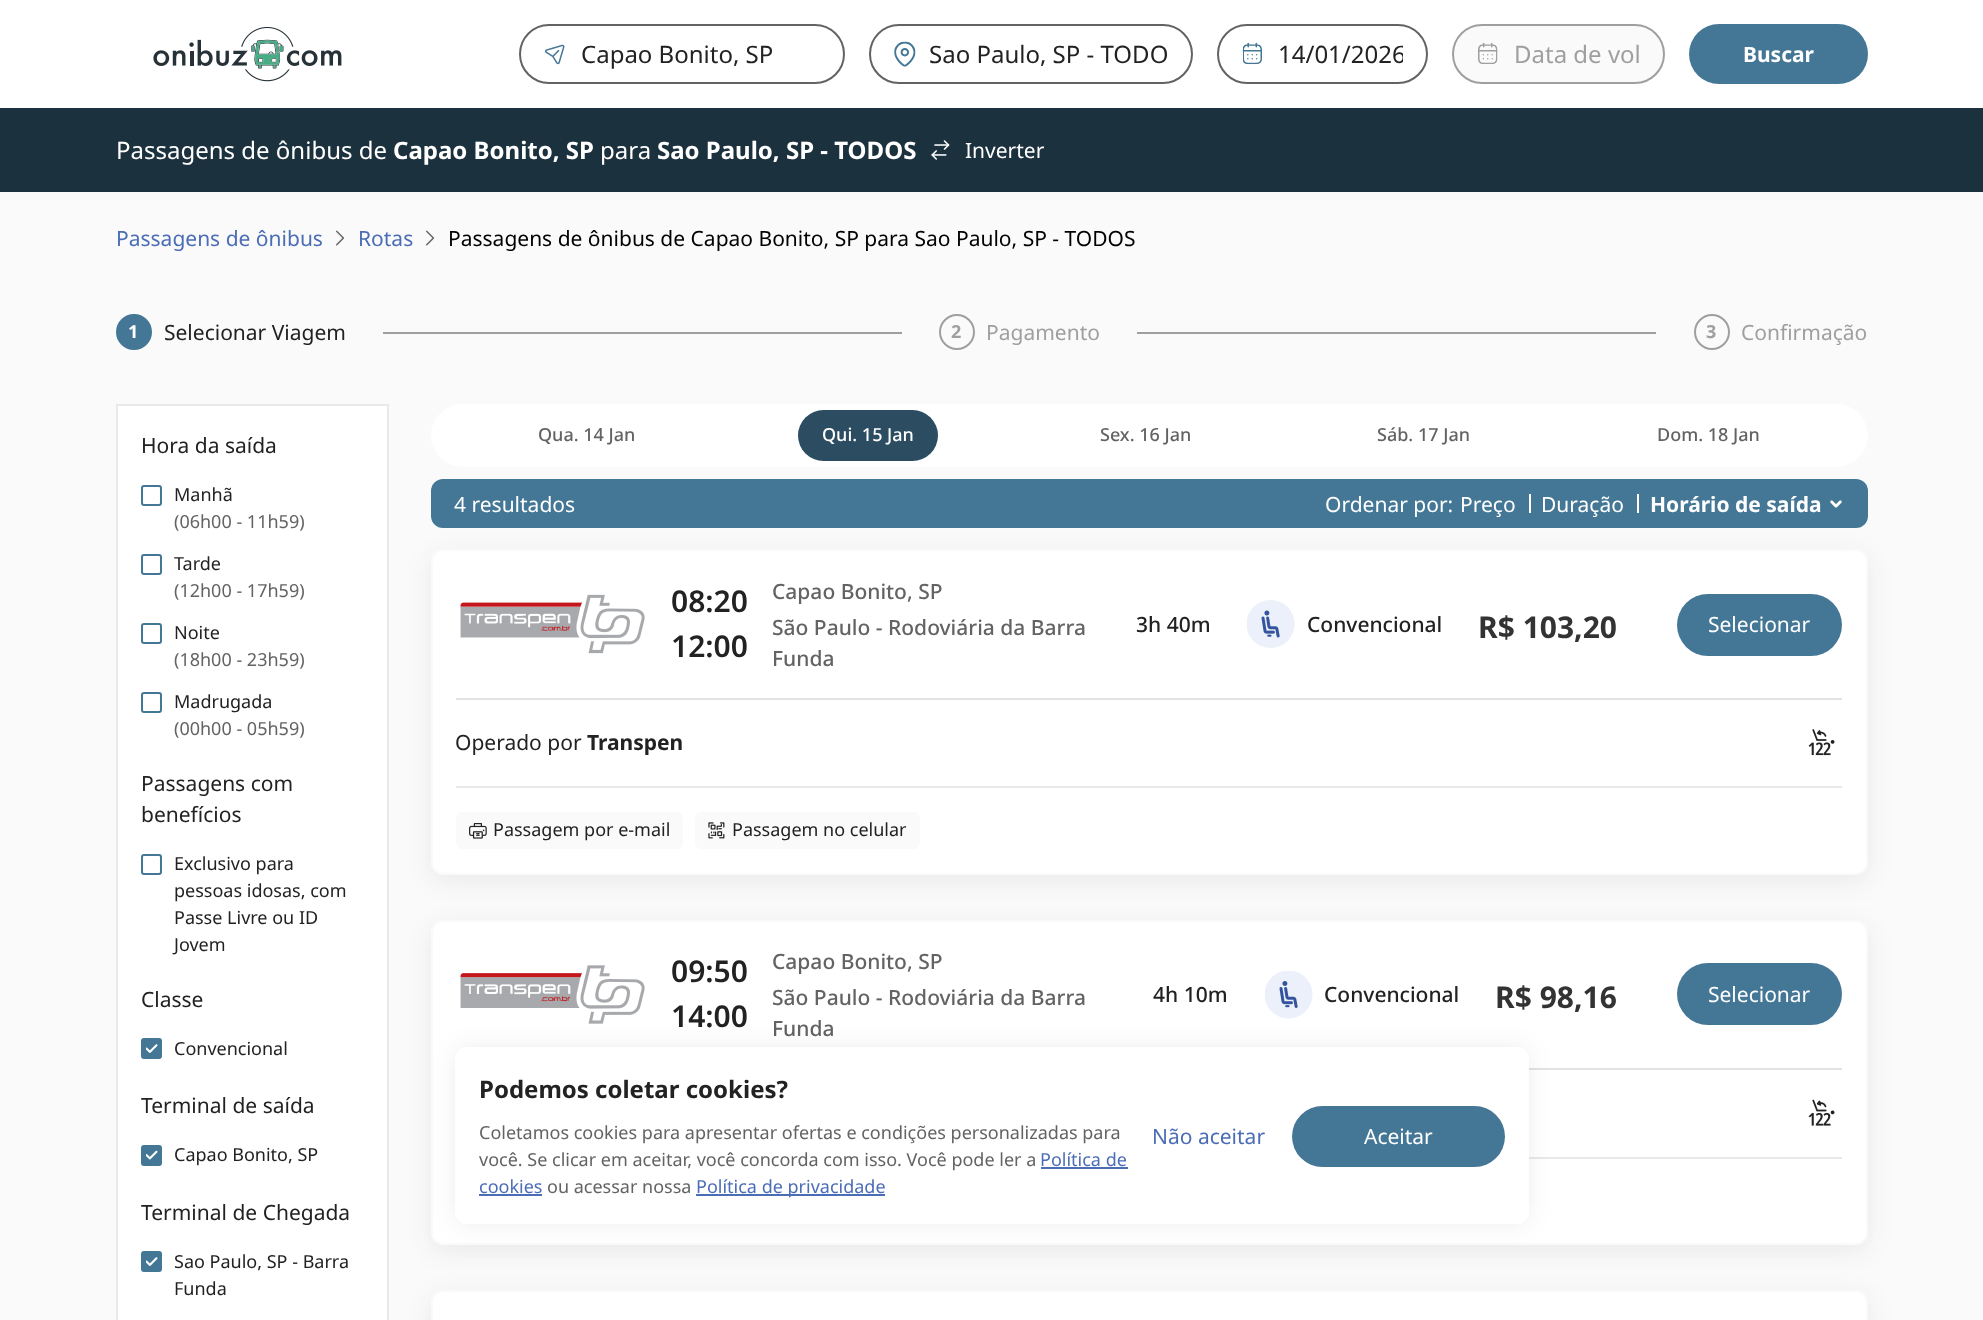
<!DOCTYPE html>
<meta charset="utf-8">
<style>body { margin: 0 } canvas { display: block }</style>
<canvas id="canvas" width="1983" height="1320"></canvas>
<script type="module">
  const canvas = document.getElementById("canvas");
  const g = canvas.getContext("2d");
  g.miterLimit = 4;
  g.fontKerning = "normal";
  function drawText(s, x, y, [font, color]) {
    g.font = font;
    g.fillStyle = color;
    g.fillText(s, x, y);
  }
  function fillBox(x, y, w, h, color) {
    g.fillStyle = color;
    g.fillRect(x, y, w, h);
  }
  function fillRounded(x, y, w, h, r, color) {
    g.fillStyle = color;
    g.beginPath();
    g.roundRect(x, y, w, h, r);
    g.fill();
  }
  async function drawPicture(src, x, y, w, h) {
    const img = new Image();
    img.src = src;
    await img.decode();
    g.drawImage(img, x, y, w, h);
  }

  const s1 = ["24px Noto Sans", "#222222"];
  const s2 = ["24px Noto Sans", "#9F9F9F"];
  const s3 = ["bold 21px Noto Sans", "#FFFFFF"];
  const s4 = ["24px Noto Sans", "#FFFFFF"];
  const s5 = ["bold 24px Noto Sans", "#FFFFFF"];
  const s6 = ["21px Noto Sans", "#FFFFFF"];
  const s7 = ["21px Noto Sans", "#4B6DB6"];
  const s8 = ["21px Noto Sans", "#000000"];
  const s9 = ["bold 18px Noto Sans", "#FFFFFF"];
  const s10 = ["21px Noto Sans", "#222222"];
  const s11 = ["bold 18px Noto Sans", "#9F9F9F"];
  const s12 = ["21px Noto Sans", "#9F9F9F"];
  const s13 = ["18px Noto Sans", "#222222"];
  const s14 = ["18px Noto Sans", "#636363"];
  const s15 = ["500 18px Noto Sans", "#636363"];
  const s16 = ["500 18px Noto Sans", "#FFFFFF"];
  const s17 = ["600 30px Noto Sans", "#222222"];
  const s18 = ["500 21px Noto Sans", "#636363"];
  const s19 = ["500 21px Noto Sans", "#222222"];
  const s20 = ["bold 30px Noto Sans", "#333333"];
  const s21 = ["bold 21px Noto Sans", "#222222"];
  const s22 = ["bold 24px Noto Sans", "#222222"];
  const s23 = ["18px Noto Sans", "#4B6DB6"];

  fillBox(0, 0, 1983, 1320, "#FFFFFF");
  await drawPicture("pic1.png", 153, 27, 189, 55);
  g.beginPath();
  g.roundRect(520, 25, 324, 58, 29);
  g.strokeStyle = "#636363";
  g.lineWidth = 2;
  g.stroke();
  await drawPicture("pic2.png", 545, 44, 20, 21);
  drawText("Capao Bonito, SP", 581, 63, s1);
  g.beginPath();
  g.roundRect(870, 25, 322, 58, 29);
  g.stroke();
  await drawPicture("pic3.png", 894, 41, 22, 26);
  g.save();
  g.beginPath();
  g.rect(930, 36, 237, 36);
  g.clip();
  drawText("Sao Paulo, SP - TODO", 929, 63, s1);
  g.restore();
  g.beginPath();
  g.roundRect(1218, 25, 209, 58, 29);
  g.stroke();
  await drawPicture("pic4.png", 1242, 42, 20, 23);
  g.save();
  g.beginPath();
  g.rect(1278, 36, 125, 36);
  g.clip();
  drawText("14/01/2026", 1278, 63, s1);
  g.restore();
  g.fillStyle = "#FAFAFA";
  g.beginPath();
  g.roundRect(1453, 25, 211, 58, 29);
  g.fill();
  g.strokeStyle = "#9F9F9F";
  g.stroke();
  await drawPicture("pic5.png", 1478, 42, 20, 22);
  drawText("Data de vol", 1514, 63, s2);
  fillRounded(1689, 24, 179, 60, 30, "#447796");
  drawText("Buscar", 1743, 62, s3);
  fillBox(0, 108, 1983, 84, "#1C313E");
  drawText("Passagens de ônibus de", 116, 159, s4);
  drawText("Capao Bonito, SP", 393, 159, s5);
  drawText("para", 600, 159, s4);
  drawText("Sao Paulo, SP - TODOS", 657, 159, s5);
  await drawPicture("pic6.png", 931, 140, 19, 20);
  drawText("Inverter", 965, 158, s6);
  fillBox(0, 192, 1983, 1128, "#FAFAFA");
  drawText("Passagens de ônibus", 116, 246, s7);
  await drawPicture("pic7.png", 336, 230, 9, 16);
  drawText("Rotas", 358, 246, s7);
  await drawPicture("pic7.png", 426, 230, 9, 16);
  drawText("Passagens de ônibus de Capao Bonito, SP para Sao Paulo, SP - TODOS", 448, 246, s8);
  g.fillStyle = "#447796";
  g.beginPath();
  g.arc(134, 332, 17, 0, Math.PI * 2);
  g.fill();
  g.strokeStyle = "#447796";
  g.stroke();
  drawText("1", 128, 338, s9);
  drawText("Selecionar Viagem", 164, 340, s10);
  fillBox(383, 332, 519, 2, "#9F9F9F");
  g.beginPath();
  g.arc(957, 332, 17, 0, Math.PI * 2);
  g.strokeStyle = "#9F9F9F";
  g.stroke();
  drawText("2", 951, 338, s11);
  drawText("Pagamento", 986, 340, s12);
  fillBox(1137, 332, 519, 2, "#9F9F9F");
  g.beginPath();
  g.arc(1712, 332, 17, 0, Math.PI * 2);
  g.stroke();
  drawText("3", 1706, 338, s11);
  drawText("Confirmação", 1741, 340, s12);
  g.fillStyle = "#FFFFFF";
  g.beginPath();
  g.rect(117, 405, 271, 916);
  g.fill();
  g.strokeStyle = "#E9E9E9";
  g.stroke();
  drawText("Hora da saída", 141, 453, s10);
  g.beginPath();
  g.roundRect(142, 486, 19, 19, 2);
  g.strokeStyle = "#447796";
  g.stroke();
  drawText("Manhã", 174, 501, s13);
  drawText("(06h00 - 11h59)", 174, 528, s14);
  g.beginPath();
  g.roundRect(142, 555, 19, 19, 2);
  g.stroke();
  drawText("Tarde", 174, 570, s13);
  drawText("(12h00 - 17h59)", 174, 597, s14);
  g.beginPath();
  g.roundRect(142, 624, 19, 19, 2);
  g.stroke();
  drawText("Noite", 174, 639, s13);
  drawText("(18h00 - 23h59)", 174, 666, s14);
  g.beginPath();
  g.roundRect(142, 693, 19, 19, 2);
  g.stroke();
  drawText("Madrugada", 174, 708, s13);
  drawText("(00h00 - 05h59)", 174, 735, s14);
  drawText("Passagens com", 141, 791, s10);
  drawText("benefícios", 141, 822, s10);
  g.beginPath();
  g.roundRect(142, 855, 19, 19, 2);
  g.stroke();
  drawText("Exclusivo para", 174, 870, s13);
  drawText("pessoas idosas, com", 174, 897, s13);
  drawText("Passe Livre ou ID", 174, 924, s13);
  drawText("Jovem", 174, 951, s13);
  drawText("Classe", 141, 1007, s10);
  g.fillStyle = "#447796";
  g.beginPath();
  g.roundRect(142, 1039, 19, 19, 2);
  g.fill();
  g.stroke();
  await drawPicture("pic8.png", 146, 1044, 12, 9);
  drawText("Convencional", 174, 1055, s13);
  drawText("Terminal de saída", 141, 1113, s10);
  g.fillStyle = "#447796";
  g.beginPath();
  g.roundRect(142, 1146, 19, 19, 2);
  g.fill();
  g.stroke();
  await drawPicture("pic9.png", 146, 1150, 12, 10);
  drawText("Capao Bonito, SP", 174, 1161, s13);
  drawText("Terminal de Chegada", 141, 1220, s10);
  g.fillStyle = "#447796";
  g.beginPath();
  g.roundRect(142, 1252, 19, 19, 2);
  g.fill();
  g.stroke();
  await drawPicture("pic8.png", 146, 1257, 12, 9);
  drawText("Sao Paulo, SP - Barra", 174, 1268, s13);
  drawText("Funda", 174, 1295, s13);
  fillRounded(431, 404, 1437, 63, 31.5, "#FFFFFF");
  drawText("Qua. 14 Jan", 538, 441, s15);
  fillRounded(798, 410, 140, 51, 25.5, "#2C4D61");
  drawText("Qui. 15 Jan", 822, 441, s16);
  drawText("Sex. 16 Jan", 1100, 441, s15);
  drawText("Sáb. 17 Jan", 1377, 441, s15);
  drawText("Dom. 18 Jan", 1657, 441, s15);
  fillRounded(431, 479, 1437, 49, 12, "#447796");
  drawText("4 resultados", 454, 512, s6);
  drawText("Ordenar por:", 1325, 512, s6);
  drawText("Preço", 1460, 512, s6);
  fillBox(1529, 494, 2, 19, "#FFFFFF");
  drawText("Duração", 1541, 512, s6);
  fillBox(1637, 494, 2, 19, "#FFFFFF");
  drawText("Horário de saída", 1650, 512, s3);
  await drawPicture("pic10.png", 1830, 500, 12, 8);
  g.fillStyle = "rgba(42, 43, 45, 0.08)";
  g.filter = "blur(12px)";
  g.beginPath();
  g.roundRect(431, 555, 1437, 326, 12);
  g.fill();
  g.filter = "none";
  g.fillStyle = "#FFFFFF";
  g.beginPath();
  g.roundRect(432, 550, 1435, 324, 11);
  g.fill();
  g.strokeStyle = "#FAFAFA";
  g.stroke();
  await drawPicture("pic11.png", 460, 594, 185, 60);
  drawText("08:20", 671, 612, s17);
  drawText("12:00", 671, 657, s17);
  drawText("Capao Bonito, SP", 772, 599, s18);
  drawText("São Paulo - Rodoviária da Barra", 772, 635, s18);
  drawText("Funda", 772, 666, s18);
  drawText("3h 40m", 1136, 632, s19);
  await drawPicture("pic12.png", 1247, 600, 48, 48);
  drawText("Convencional", 1307, 632, s19);
  drawText("R$ 103,20", 1478, 638, s20);
  fillRounded(1677, 594, 165, 62, 31, "#447796");
  drawText("Selecionar", 1708, 632, s6);
  fillBox(456, 698, 1386, 2, "#E3E3E3");
  drawText("Operado por", 455, 750, s10);
  drawText("Transpen", 587, 750, s21);
  await drawPicture("pic13.png", 1808, 729, 27, 27);
  fillBox(456, 786, 1386, 2, "#E9E9E9");
  fillRounded(456, 812, 227, 37, 6, "#FAFAFA");
  await drawPicture("pic14.png", 469, 823, 18, 16);
  drawText("Passagem por e-mail", 493, 836, s13);
  fillRounded(695, 812, 225, 37, 6, "#FAFAFA");
  await drawPicture("pic15.png", 708, 822, 17, 17);
  drawText("Passagem no celular", 732, 836, s13);
  g.fillStyle = "rgba(42, 43, 45, 0.08)";
  g.filter = "blur(12px)";
  g.beginPath();
  g.roundRect(431, 926, 1437, 325, 12);
  g.fill();
  g.filter = "none";
  g.fillStyle = "#FFFFFF";
  g.beginPath();
  g.roundRect(432, 921, 1435, 323, 11);
  g.fill();
  g.stroke();
  await drawPicture("pic16.png", 460, 965, 185, 59);
  drawText("09:50", 671, 982, s17);
  drawText("14:00", 671, 1027, s17);
  drawText("Capao Bonito, SP", 772, 969, s18);
  drawText("São Paulo - Rodoviária da Barra", 772, 1005, s18);
  drawText("Funda", 772, 1036, s18);
  drawText("4h 10m", 1153, 1002, s19);
  await drawPicture("pic17.png", 1265, 971, 48, 48);
  drawText("Convencional", 1324, 1002, s19);
  drawText("R$ 98,16", 1495, 1008, s20);
  fillRounded(1677, 963, 165, 62, 31, "#447796");
  drawText("Selecionar", 1708, 1002, s6);
  fillBox(1529, 1068, 313, 2, "#E3E3E3");
  await drawPicture("pic18.png", 1808, 1099, 27, 27);
  fillBox(1529, 1157, 313, 2, "#E9E9E9");
  g.fillStyle = "rgba(42, 43, 45, 0.08)";
  g.filter = "blur(12px)";
  g.beginPath();
  g.roundRect(431, 1296, 1437, 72, 12);
  g.fill();
  g.filter = "none";
  g.fillStyle = "#FFFFFF";
  g.beginPath();
  g.roundRect(432, 1291, 1435, 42, 11);
  g.fill();
  g.stroke();
  g.fillStyle = "rgba(42, 43, 45, 0.08)";
  g.filter = "blur(12px)";
  g.beginPath();
  g.roundRect(455, 1047, 1074, 177, 12);
  g.fill();
  g.filter = "none";
  fillRounded(455, 1047, 1074, 177, 12, "#FFFFFF");
  drawText("Podemos coletar cookies?", 479, 1098, s22);
  drawText("Coletamos cookies para apresentar ofertas e condições personalizadas para", 479, 1139, s14);
  drawText("você. Se clicar em aceitar, você concorda com isso. Você pode ler a", 479, 1166, s14);
  drawText("Política de", 1040, 1166, s23);
  fillBox(1041, 1167, 87, 2, "#4B6DB6");
  drawText("cookies", 479, 1193, s23);
  fillBox(479, 1194, 63, 2, "#4B6DB6");
  drawText("ou acessar nossa", 547, 1193, s14);
  fillBox(696, 1194, 189, 2, "#4B6DB6");
  drawText("Política de privacidade", 696, 1193, s23);
  drawText("Não aceitar", 1152, 1144, s7);
  fillRounded(1292, 1106, 213, 61, 30.5, "#447796");
  drawText("Aceitar", 1364, 1144, s6);
</script>
